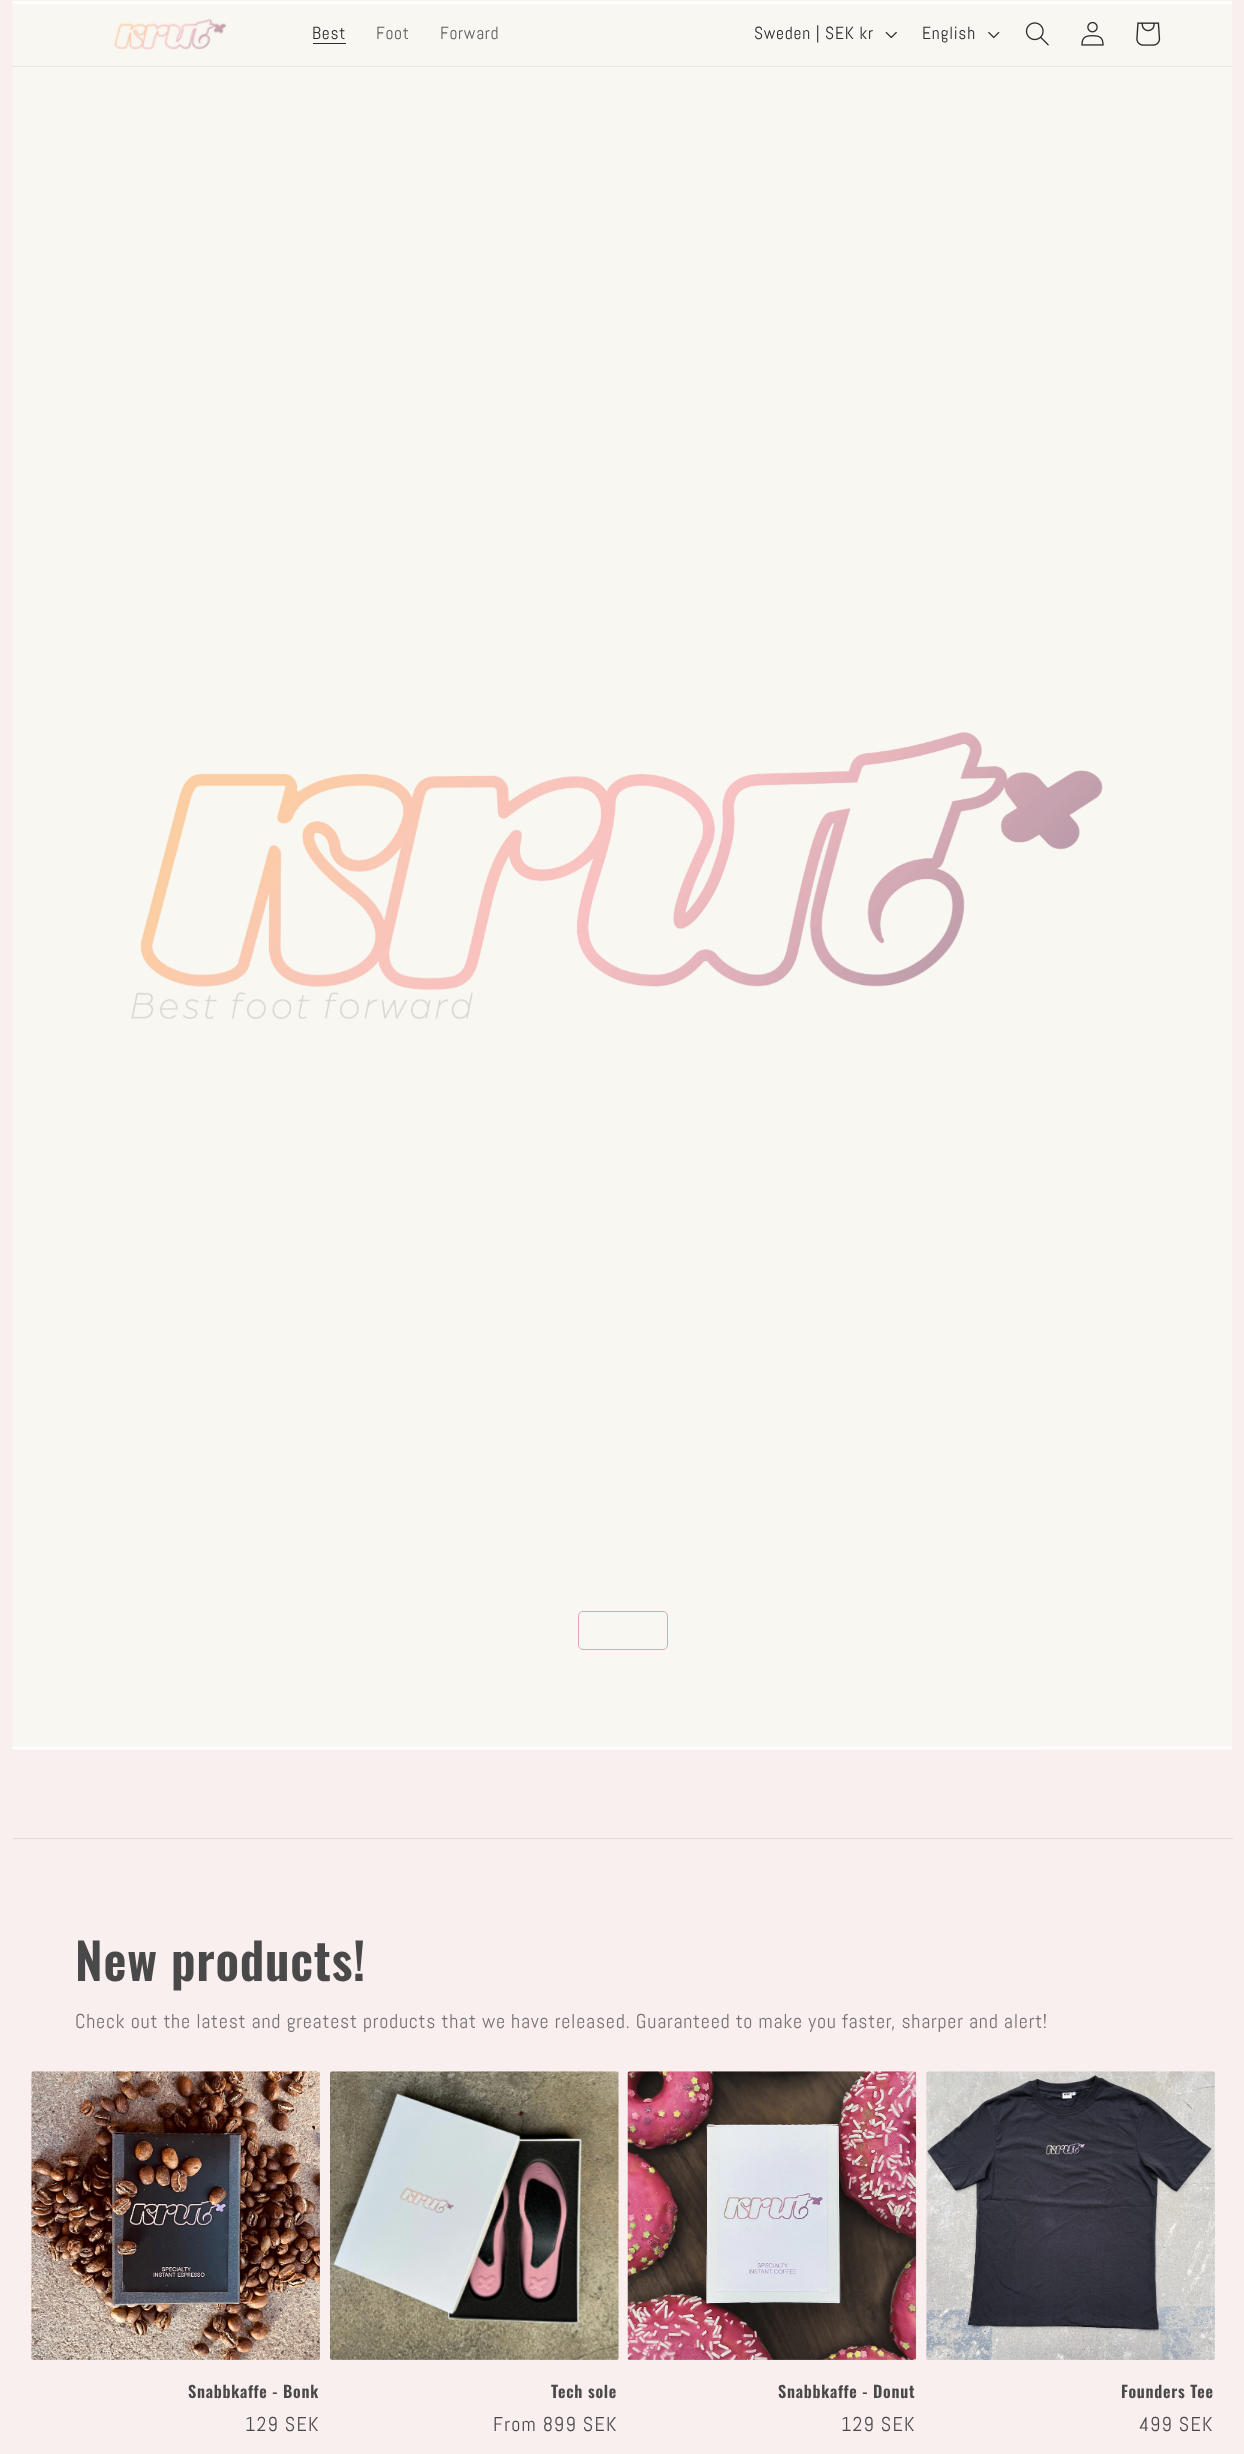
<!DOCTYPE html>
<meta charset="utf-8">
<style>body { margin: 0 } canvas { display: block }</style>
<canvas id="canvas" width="1244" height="2454"></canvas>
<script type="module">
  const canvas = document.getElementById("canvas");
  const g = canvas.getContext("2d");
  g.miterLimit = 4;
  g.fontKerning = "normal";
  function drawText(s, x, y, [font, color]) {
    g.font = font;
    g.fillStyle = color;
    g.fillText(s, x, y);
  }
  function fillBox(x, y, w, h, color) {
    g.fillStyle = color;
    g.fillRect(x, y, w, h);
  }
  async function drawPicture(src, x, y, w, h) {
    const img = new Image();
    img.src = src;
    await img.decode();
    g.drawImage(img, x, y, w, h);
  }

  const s1 = ["17.5px Abel", "#2B2B2B"];
  const s2 = ["17.5px Abel", "#5E5E5D"];
  const s3 = ["600 50px Oswald", "#494949"];
  const s4 = ["20px Abel", "#757373"];
  const s5 = ["600 16.25px Oswald", "#494949"];
  const s6 = ["20px Abel", "#494949"];

  fillBox(0, 0, 1244, 2454, "#FAEFEF");
  await drawPicture("pic7.png", 12, 1, 1221, 1749);
  fillBox(13, 66, 1220, 1, "rgba(43, 43, 43, 0.08)");
  await drawPicture("pic1.png", 113, 18, 114, 32);
  g.letterSpacing = "0.75px";
  drawText("Best", 312, 39, s1);
  fillBox(313, 43, 33, 1, "#2B2B2B");
  drawText("Foot", 376, 39, s2);
  drawText("Forward", 440, 39, s2);
  drawText("Sweden | SEK kr", 754, 39, s1);
  await drawPicture("pic2.png", 885, 31, 12, 8);
  drawText("English", 922, 39, s1);
  await drawPicture("pic3.png", 988, 31, 12, 8);
  await drawPicture("pic4.png", 1025, 22, 24, 24);
  await drawPicture("pic5.png", 1081, 21, 23, 25);
  await drawPicture("pic6.png", 1136, 22, 25, 24);
  await drawPicture("pic8.png", 131, 732, 972, 287);
  g.beginPath();
  g.roundRect(578.5, 1611.5, 89, 38, 4.5);
  g.strokeStyle = "#DFA5B7";
  g.stroke();
  fillBox(13, 1838, 1220, 1, "#E2D9D9");
  drawText("New products!", 75, 1981, s3);
  drawText("Check out the latest and greatest products that we have released. Guaranteed to make you faster, sharper and alert!", 75, 2028, s4);
  await drawPicture("pic9.png", 31, 2071, 289, 289);
  drawText("Snabbkaffe - Bonk", 188, 2398, s5);
  g.letterSpacing = "1.25px";
  drawText("129 SEK", 245, 2431, s6);
  await drawPicture("pic10.png", 330, 2071, 289, 289);
  g.letterSpacing = "0.75px";
  drawText("Tech sole", 551, 2398, s5);
  g.letterSpacing = "1.25px";
  drawText("From 899 SEK", 493, 2431, s6);
  await drawPicture("pic11.png", 627, 2071, 290, 289);
  g.letterSpacing = "0.75px";
  drawText("Snabbkaffe - Donut", 778, 2398, s5);
  g.letterSpacing = "1.25px";
  drawText("129 SEK", 841, 2431, s6);
  await drawPicture("pic12.png", 926, 2071, 289, 289);
  g.letterSpacing = "0.75px";
  drawText("Founders Tee", 1121, 2398, s5);
  g.letterSpacing = "1.25px";
  drawText("499 SEK", 1139, 2431, s6);
</script>
